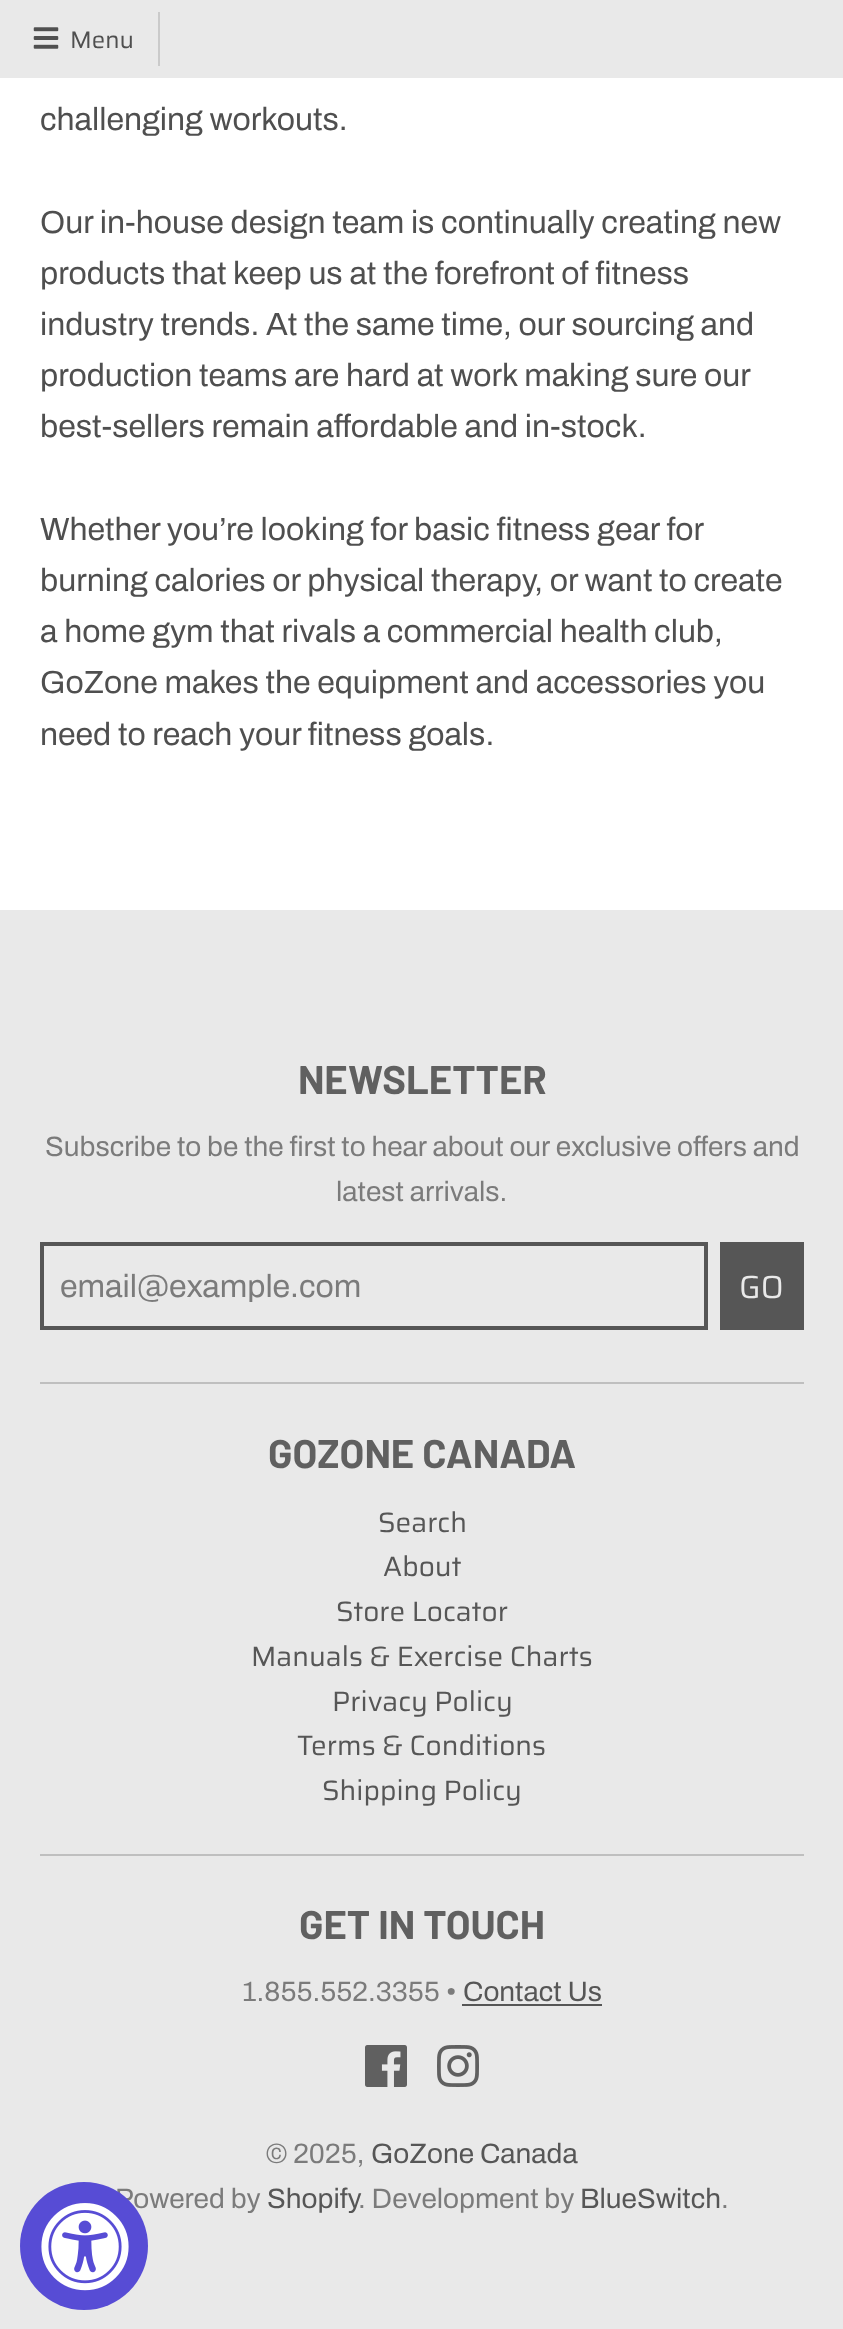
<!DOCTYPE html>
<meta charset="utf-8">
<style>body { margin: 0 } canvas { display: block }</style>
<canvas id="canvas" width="843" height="2329"></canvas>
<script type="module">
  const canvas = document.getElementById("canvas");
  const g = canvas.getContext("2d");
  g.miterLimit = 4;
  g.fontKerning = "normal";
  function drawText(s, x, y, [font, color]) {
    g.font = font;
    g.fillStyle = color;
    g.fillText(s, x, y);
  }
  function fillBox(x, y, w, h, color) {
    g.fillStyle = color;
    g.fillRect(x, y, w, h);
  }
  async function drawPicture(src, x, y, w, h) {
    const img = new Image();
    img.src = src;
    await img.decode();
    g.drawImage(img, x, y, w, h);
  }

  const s1 = ["24px Saira", "#4F4F4F"];
  const s2 = ["32px Archivo", "#4F4F4F"];
  const s3 = ["bold 40px Barlow", "#606060"];
  const s4 = ["28px Archivo", "#7B7B7B"];
  const s5 = ["32px Archivo", "#7B7B7B"];
  const s6 = ["32px Saira", "#E9E9E9"];
  const s7 = ["28px Saira", "#565656"];
  const s8 = ["28px Archivo", "#565656"];

  fillBox(0, 0, 843, 2329, "#FFFFFF");
  fillBox(0, 0, 843, 78, "#E9E9E9");
  fillBox(158, 12, 2, 54, "#CACACA");
  await drawPicture("pic1.png", 33, 27, 26, 22);
  drawText("Menu", 70, 48, s1);
  drawText("challenging workouts.", 40, 130, s2);
  drawText("Our in-house design team is continually creating new", 40, 233, s2);
  drawText("products that keep us at the forefront of fitness", 40, 284, s2);
  drawText("industry trends. At the same time, our sourcing and", 40, 335, s2);
  drawText("production teams are hard at work making sure our", 40, 386, s2);
  drawText("best-sellers remain affordable and in-stock.", 40, 437, s2);
  drawText("Whether you’re looking for basic fitness gear for", 40, 540, s2);
  drawText("burning calories or physical therapy, or want to create", 40, 591, s2);
  drawText("a home gym that rivals a commercial health club,", 40, 642, s2);
  drawText("GoZone makes the equipment and accessories you", 40, 693, s2);
  drawText("need to reach your fitness goals.", 40, 745, s2);
  fillBox(0, 910, 843, 1419, "#E9E9E9");
  drawText("NEWSLETTER", 298, 1094, s3);
  drawText("Subscribe to be the first to hear about our exclusive offers and", 45, 1156, s4);
  drawText("latest arrivals.", 336, 1201, s4);
  fillBox(40, 1382, 764, 2, "#BFBFBF");
  g.strokeStyle = "#565656";
  g.lineWidth = 4;
  g.strokeRect(42, 1244, 664, 84);
  g.save();
  g.beginPath();
  g.rect(60, 1268, 628, 34);
  g.clip();
  drawText("email@example.com", 60, 1297, s5);
  g.restore();
  fillBox(720, 1242, 84, 88, "#565656");
  drawText("GO", 739, 1298, s6);
  drawText("GOZONE CANADA", 268, 1468, s3);
  fillBox(40, 1854, 764, 2, "#BFBFBF");
  drawText("Search", 378, 1532, s7);
  drawText("About", 383, 1576, s7);
  drawText("Store Locator", 336, 1621, s7);
  drawText("Manuals & Exercise Charts", 251, 1666, s7);
  drawText("Privacy Policy", 332, 1711, s7);
  drawText("Terms & Conditions", 297, 1755, s7);
  drawText("Shipping Policy", 322, 1800, s7);
  drawText("GET IN TOUCH", 299, 1939, s3);
  drawText("1.855.552.3355 •", 242, 2001, s4);
  drawText("Contact Us", 463, 2001, s8);
  fillBox(462, 2004, 140, 2, "#565656");
  await drawPicture("pic2.png", 365, 2045, 42, 42);
  await drawPicture("pic3.png", 437, 2045, 42, 42);
  drawText("© 2025,", 266, 2163, s4);
  drawText("GoZone Canada", 371, 2163, s8);
  drawText("Powered by", 115, 2208, s4);
  drawText("Shopify", 267, 2208, s8);
  drawText(". Development by", 358, 2208, s4);
  drawText("BlueSwitch", 580, 2208, s8);
  drawText(".", 721, 2208, s4);
  g.fillStyle = "#574CD5";
  g.beginPath();
  g.arc(84, 2246, 64, 0, Math.PI * 2);
  g.fill();
  await drawPicture("pic4.png", 41, 2203, 88, 88);
</script>
